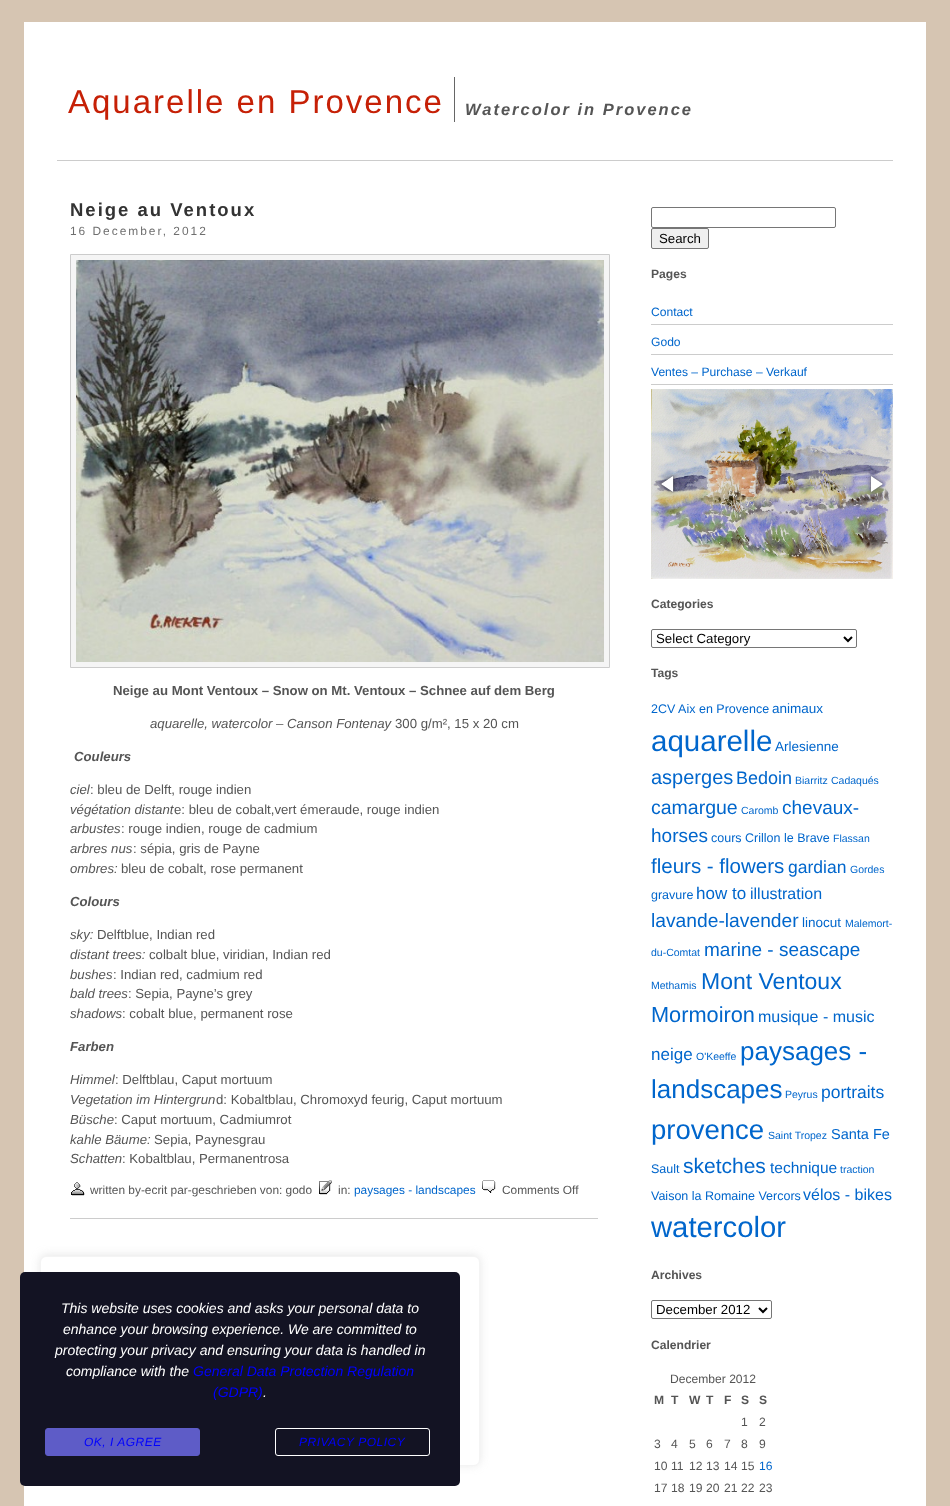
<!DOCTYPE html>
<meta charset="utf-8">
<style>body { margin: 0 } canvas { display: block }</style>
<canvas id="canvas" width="950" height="1506"></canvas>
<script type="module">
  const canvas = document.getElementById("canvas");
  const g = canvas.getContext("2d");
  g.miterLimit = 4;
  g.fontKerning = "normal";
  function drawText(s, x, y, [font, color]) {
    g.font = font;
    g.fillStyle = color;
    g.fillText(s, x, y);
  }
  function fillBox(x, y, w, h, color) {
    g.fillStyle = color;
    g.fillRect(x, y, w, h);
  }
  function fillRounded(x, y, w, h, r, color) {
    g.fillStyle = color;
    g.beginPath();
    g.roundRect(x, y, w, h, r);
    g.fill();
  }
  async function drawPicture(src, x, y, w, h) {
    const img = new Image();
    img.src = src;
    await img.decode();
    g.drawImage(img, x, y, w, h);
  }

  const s1 = ["33px Liberation Sans", "#C62006"];
  const s2 = ["italic bold 16.5px Liberation Sans", "#555555"];
  const s3 = ["bold 18.5px Liberation Sans", "#333333"];
  const s4 = ["11.9px Liberation Sans", "#6F6F6F"];
  const s5 = ["bold 13.2px Liberation Sans", "#555555"];
  const s6 = ["italic 13.2px Liberation Sans", "#555555"];
  const s7 = ["13.2px Liberation Sans", "#555555"];
  const s8 = ["italic bold 13.2px Liberation Sans", "#555555"];
  const s9 = ["11.9px Liberation Sans", "#555555"];
  const s10 = ["11.9px Liberation Sans", "#0066CC"];
  const s11 = ["13.25px Liberation Sans", "#000000"];
  const s12 = ["bold 12.1px Liberation Sans", "#555555"];
  const s13 = ["12.1px Liberation Sans", "#0066CC"];
  const s14 = ["12.5px Liberation Sans", "#0066CC"];
  const s15 = ["13.5px Liberation Sans", "#0066CC"];
  const s16 = ["29.5px Liberation Sans", "#0066CC"];
  const s17 = ["20px Liberation Sans", "#0066CC"];
  const s18 = ["18px Liberation Sans", "#0066CC"];
  const s19 = ["10.5px Liberation Sans", "#0066CC"];
  const s20 = ["19.5px Liberation Sans", "#0066CC"];
  const s21 = ["19px Liberation Sans", "#0066CC"];
  const s22 = ["20.5px Liberation Sans", "#0066CC"];
  const s23 = ["17.5px Liberation Sans", "#0066CC"];
  const s24 = ["17px Liberation Sans", "#0066CC"];
  const s25 = ["16px Liberation Sans", "#0066CC"];
  const s26 = ["19.25px Liberation Sans", "#0066CC"];
  const s27 = ["23px Liberation Sans", "#0066CC"];
  const s28 = ["21.75px Liberation Sans", "#0066CC"];
  const s29 = ["26px Liberation Sans", "#0066CC"];
  const s30 = ["27.5px Liberation Sans", "#0066CC"];
  const s31 = ["14.5px Liberation Sans", "#0066CC"];
  const s32 = ["21px Liberation Sans", "#0066CC"];
  const s33 = ["15.5px Liberation Sans", "#0066CC"];
  const s34 = ["29.25px Liberation Sans", "#0066CC"];
  const s35 = ["12.1px Liberation Sans", "#555555"];
  const s36 = ["italic 14px Liberation Sans", "#FFFFFF"];
  const s37 = ["italic 14px Liberation Sans", "#0000FF"];
  const s38 = ["italic 12px Liberation Sans", "#0000FF"];

  fillBox(0, 0, 950, 1506, "#D6C5B2");
  fillBox(24, 22, 902, 1484, "#FFFFFF");
  fillBox(57, 160, 836, 1, "#CCCCCC");
  g.letterSpacing = "2px";
  drawText("Aquarelle en Provence", 68, 113, s1);
  fillBox(454, 77, 1, 45, "#666666");
  drawText("Watercolor in Provence", 465, 115, s2);
  fillBox(70, 1218, 528, 1, "#CCCCCC");
  drawText("Neige au Ventoux", 70, 216, s3);
  drawText("16 December, 2012", 70, 235, s4);
  g.fillStyle = "#F5F5F5";
  g.beginPath();
  g.rect(70.5, 254.5, 539, 413);
  g.fill();
  g.strokeStyle = "#CCCCCC";
  g.stroke();
  await drawPicture("pic1.png", 76, 260, 528, 402);
  g.letterSpacing = "0px";
  drawText("Neige au Mont Ventoux – Snow on Mt. Ventoux – Schnee auf dem Berg", 113, 695, s5);
  drawText("aquarelle, watercolor – Canson Fontenay", 150, 728, s6);
  drawText("300 g/m², 15 x 20 cm", 395, 728, s7);
  drawText("Couleurs", 74, 761, s8);
  drawText("ciel", 70, 794, s6);
  drawText(": bleu de Delft, rouge indien", 90, 794, s7);
  drawText("végétation distant", 70, 814, s6);
  drawText("e: bleu de cobalt,vert émeraude, rouge indien", 174, 814, s7);
  drawText("arbustes", 70, 833, s6);
  drawText(": rouge indien, rouge de cadmium", 121, 833, s7);
  drawText("arbres nus", 70, 853, s6);
  drawText(": sépia, gris de Payne", 133, 853, s7);
  drawText("ombres:", 70, 873, s6);
  drawText("bleu de cobalt, rose permanent", 121, 873, s7);
  drawText("Colours", 70, 906, s8);
  drawText("sky:", 70, 939, s6);
  drawText("Delftblue, Indian red", 97, 939, s7);
  drawText("distant trees:", 70, 959, s6);
  drawText("colbalt blue, viridian, Indian red", 149, 959, s7);
  drawText("bushes", 70, 979, s6);
  drawText(": Indian red, cadmium red", 113, 979, s7);
  drawText("bald trees", 70, 998, s6);
  drawText(": Sepia, Payne’s grey", 128, 998, s7);
  drawText("shadows", 70, 1018, s6);
  drawText(": cobalt blue, permanent rose", 122, 1018, s7);
  drawText("Farben", 70, 1051, s8);
  drawText("Himmel", 70, 1084, s6);
  drawText(": Delftblau, Caput mortuum", 115, 1084, s7);
  drawText("Vegetation im Hintergrun", 70, 1104, s6);
  drawText("d: Kobaltblau, Chromoxyd feurig, Caput mortuum", 216, 1104, s7);
  drawText("Büsche", 70, 1124, s6);
  drawText(": Caput mortuum, Cadmiumrot", 114, 1124, s7);
  drawText("kahle Bäume:", 70, 1144, s6);
  drawText("Sepia, Paynesgrau", 154, 1144, s7);
  drawText("Schatten", 70, 1163, s6);
  drawText(": Kobaltblau, Permanentrosa", 122, 1163, s7);
  await drawPicture("pic2.png", 71, 1182, 14, 14);
  drawText("written by-ecrit par-geschrieben von: godo", 90, 1194, s9);
  await drawPicture("pic3.png", 319, 1180, 13, 15);
  drawText("in:", 338, 1194, s9);
  drawText("paysages - landscapes", 354, 1194, s10);
  await drawPicture("pic4.png", 482, 1180, 14, 13);
  drawText("Comments Off", 502, 1194, s9);
  g.beginPath();
  g.roundRect(651.5, 207.5, 184, 20, 1.5);
  g.strokeStyle = "#767676";
  g.stroke();
  g.fillStyle = "#EFEFEF";
  g.beginPath();
  g.roundRect(651.5, 228.5, 57, 20, 1.5);
  g.fill();
  g.stroke();
  drawText("Search", 659, 243, s11);
  drawText("Pages", 651, 278, s12);
  fillBox(651, 324, 242, 1, "#CCCCCC");
  drawText("Contact", 651, 316, s13);
  fillBox(651, 354, 242, 1, "#CCCCCC");
  drawText("Godo", 651, 346, s13);
  fillBox(651, 384, 242, 1, "#CCCCCC");
  drawText("Ventes – Purchase – Verkauf", 651, 376, s13);
  await drawPicture("pic5.png", 651, 389, 242, 190);
  await drawPicture("pic6.png", 659, 473, 18, 22);
  await drawPicture("pic7.png", 866, 473, 20, 21);
  drawText("Categories", 651, 608, s12);
  g.beginPath();
  g.roundRect(651.5, 629.5, 205, 18, 1.5);
  g.stroke();
  g.beginPath();
  g.moveTo(844, 637);
  g.lineTo(848, 641);
  g.lineTo(852, 637);
  g.strokeStyle = "#000000";
  g.lineWidth = 2;
  g.stroke();
  drawText("Select Category", 656, 643, s11);
  drawText("Tags", 651, 677, s12);
  drawText("2CV Aix en Provence", 651, 713, s14);
  drawText("animaux", 772, 713, s15);
  drawText("aquarelle", 651, 751, s16);
  drawText("Arlesienne", 775, 751, s15);
  drawText("asperges", 651, 784, s17);
  drawText("Bedoin", 736, 784, s18);
  drawText("Biarritz", 795, 784, s19);
  drawText("Cadaqués", 831, 784, s19);
  drawText("camargue", 651, 814, s20);
  drawText("Caromb", 741, 814, s19);
  drawText("chevaux-", 782, 814, s21);
  drawText("horses", 651, 842, s21);
  drawText("cours Crillon le Brave", 711, 842, s14);
  drawText("Flassan", 833, 842, s19);
  drawText("fleurs - flowers", 651, 873, s22);
  drawText("gardian", 788, 873, s23);
  drawText("Gordes", 850, 873, s19);
  drawText("gravure", 651, 899, s14);
  drawText("how to", 696, 899, s24);
  drawText("illustration", 750, 899, s25);
  drawText("lavande-lavender", 651, 927, s26);
  drawText("linocut", 802, 927, s15);
  drawText("Malemort-", 845, 927, s19);
  drawText("du-Comtat", 651, 956, s19);
  drawText("marine - seascape", 704, 956, s21);
  drawText("Methamis", 651, 989, s19);
  drawText("Mont Ventoux", 701, 989, s27);
  drawText("Mormoiron", 651, 1022, s28);
  drawText("musique - music", 758, 1022, s25);
  drawText("neige", 651, 1060, s24);
  drawText("O'Keeffe", 696, 1060, s19);
  drawText("paysages -", 740, 1060, s29);
  drawText("landscapes", 651, 1098, s29);
  drawText("Peyrus", 785, 1098, s19);
  drawText("portraits", 821, 1098, s23);
  drawText("provence", 651, 1139, s30);
  drawText("Saint Tropez", 768, 1139, s19);
  drawText("Santa Fe", 831, 1139, s31);
  drawText("Sault", 651, 1173, s14);
  drawText("sketches", 683, 1173, s32);
  drawText("technique", 770, 1173, s33);
  drawText("traction", 840, 1173, s19);
  drawText("Vaison la Romaine Vercors", 651, 1200, s14);
  drawText("vélos - bikes", 803, 1200, s25);
  drawText("watercolor", 651, 1237, s34);
  drawText("Archives", 651, 1279, s12);
  g.beginPath();
  g.roundRect(651.5, 1300.5, 120, 18, 1.5);
  g.strokeStyle = "#767676";
  g.lineWidth = 1;
  g.stroke();
  g.beginPath();
  g.moveTo(759, 1308);
  g.lineTo(763, 1312);
  g.lineTo(767, 1308);
  g.strokeStyle = "#000000";
  g.lineWidth = 2;
  g.stroke();
  drawText("December 2012", 656, 1314, s11);
  drawText("Calendrier", 651, 1349, s12);
  drawText("December 2012", 670, 1383, s35);
  drawText("M", 654, 1404, s12);
  drawText("T", 671, 1404, s12);
  drawText("W", 689, 1404, s12);
  drawText("T", 706, 1404, s12);
  drawText("F", 724, 1404, s12);
  drawText("S", 741, 1404, s12);
  drawText("S", 759, 1404, s12);
  drawText("1", 741, 1426, s35);
  drawText("2", 759, 1426, s35);
  drawText("3", 654, 1448, s35);
  drawText("4", 671, 1448, s35);
  drawText("5", 689, 1448, s35);
  drawText("6", 706, 1448, s35);
  drawText("7", 724, 1448, s35);
  drawText("8", 741, 1448, s35);
  drawText("9", 759, 1448, s35);
  drawText("10", 654, 1470, s35);
  drawText("11", 671, 1470, s35);
  drawText("12", 689, 1470, s35);
  drawText("13", 706, 1470, s35);
  drawText("14", 724, 1470, s35);
  drawText("15", 741, 1470, s35);
  drawText("16", 759, 1470, s13);
  drawText("17", 654, 1492, s35);
  drawText("18", 671, 1492, s35);
  drawText("19", 689, 1492, s35);
  drawText("20", 706, 1492, s35);
  drawText("21", 724, 1492, s35);
  drawText("22", 741, 1492, s35);
  drawText("23", 759, 1492, s35);
  g.fillStyle = "rgba(172, 171, 171, 0.3)";
  g.filter = "blur(5px)";
  g.beginPath();
  g.roundRect(40, 1255, 440, 210, 6);
  g.fill();
  g.filter = "none";
  g.fillStyle = "#FFFFFF";
  g.beginPath();
  g.roundRect(40.5, 1256.5, 439, 209, 5.5);
  g.fill();
  g.strokeStyle = "#F4F4F4";
  g.lineWidth = 1;
  g.stroke();
  fillRounded(20, 1272, 440, 214, 5, "#131323");
  drawText("This website uses cookies and asks your personal data to", 61, 1313, s36);
  drawText("enhance your browsing experience. We are committed to", 63, 1334, s36);
  drawText("protecting your privacy and ensuring your data is handled in", 55, 1355, s36);
  drawText("compliance with the", 66, 1376, s36);
  drawText("General Data Protection Regulation", 193, 1376, s37);
  drawText("(GDPR)", 213, 1397, s37);
  drawText(".", 263, 1397, s36);
  g.fillStyle = "#5E5CC7";
  g.beginPath();
  g.roundRect(45.5, 1428.5, 154, 27, 2.5);
  g.fill();
  g.strokeStyle = "#5E5CC7";
  g.stroke();
  g.letterSpacing = "0.5px";
  drawText("OK, I AGREE", 84, 1446, s38);
  g.beginPath();
  g.roundRect(275.5, 1428.5, 154, 27, 2.5);
  g.strokeStyle = "#FFFFFF";
  g.stroke();
  drawText("PRIVACY POLICY", 299, 1446, s38);
</script>
